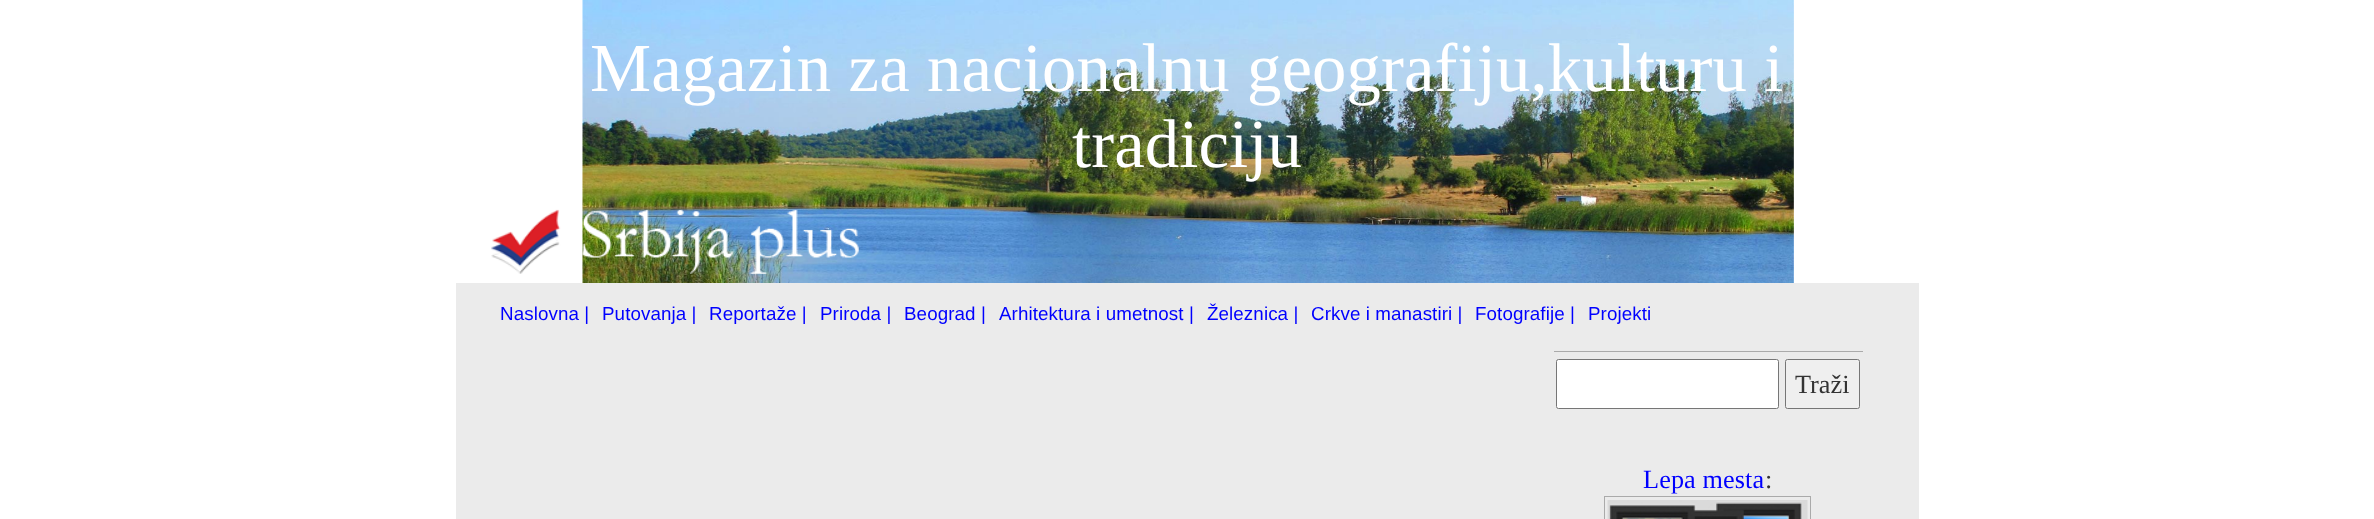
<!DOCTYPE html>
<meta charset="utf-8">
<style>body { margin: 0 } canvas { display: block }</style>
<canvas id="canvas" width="2374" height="519"></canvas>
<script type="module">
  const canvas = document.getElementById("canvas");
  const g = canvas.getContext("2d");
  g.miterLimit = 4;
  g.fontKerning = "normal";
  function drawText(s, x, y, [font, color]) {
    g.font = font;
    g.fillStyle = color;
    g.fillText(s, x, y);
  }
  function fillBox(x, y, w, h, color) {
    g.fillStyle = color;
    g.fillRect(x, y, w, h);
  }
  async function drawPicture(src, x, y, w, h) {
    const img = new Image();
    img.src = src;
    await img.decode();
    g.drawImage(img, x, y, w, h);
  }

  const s1 = ["68.75px Liberation Serif", "#FFFFFF"];
  const s2 = ["18.75px Liberation Sans", "#0000FF"];
  const s3 = ["26.25px Liberation Serif", "#333333"];
  const s4 = ["26.25px Liberation Serif", "#0000FF"];

  fillBox(0, 0, 2374, 519, "#FFFFFF");
  await drawPicture("pic1.png", 582, 0, 1212, 283);
  g.letterSpacing = "0.1px";
  drawText("Magazin za nacionalnu geografiju,kulturu i", 590, 91, s1);
  drawText("tradiciju", 1072, 167, s1);
  await drawPicture("pic2.png", 491, 209, 368, 65);
  fillBox(456, 283, 1463, 236, "#EBEBEB");
  drawText("Naslovna |", 500, 320, s2);
  drawText("Putovanja |", 602, 320, s2);
  drawText("Reportaže |", 709, 320, s2);
  drawText("Priroda |", 820, 320, s2);
  drawText("Beograd |", 904, 320, s2);
  drawText("Arhitektura i umetnost |", 999, 320, s2);
  drawText("Železnica |", 1207, 320, s2);
  drawText("Crkve i manastiri |", 1311, 320, s2);
  drawText("Fotografije |", 1475, 320, s2);
  drawText("Projekti", 1588, 320, s2);
  fillBox(1554, 351, 309, 1, "#AAAAAA");
  g.fillStyle = "#FFFFFF";
  g.beginPath();
  g.roundRect(1556.5, 359.5, 222, 49, 2);
  g.fill();
  g.strokeStyle = "#767676";
  g.stroke();
  g.fillStyle = "#EFEFEF";
  g.beginPath();
  g.roundRect(1785.5, 359.5, 74, 49, 2);
  g.fill();
  g.stroke();
  g.letterSpacing = "0px";
  drawText("Traži", 1795, 393, s3);
  g.letterSpacing = "0.1px";
  drawText("Lepa mesta", 1643, 488, s4);
  drawText(":", 1765, 488, s3);
  g.strokeStyle = "#AAAAAA";
  g.strokeRect(1604.5, 496.5, 206, 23);
  await drawPicture("pic3.png", 1607, 500, 201, 19);
</script>
